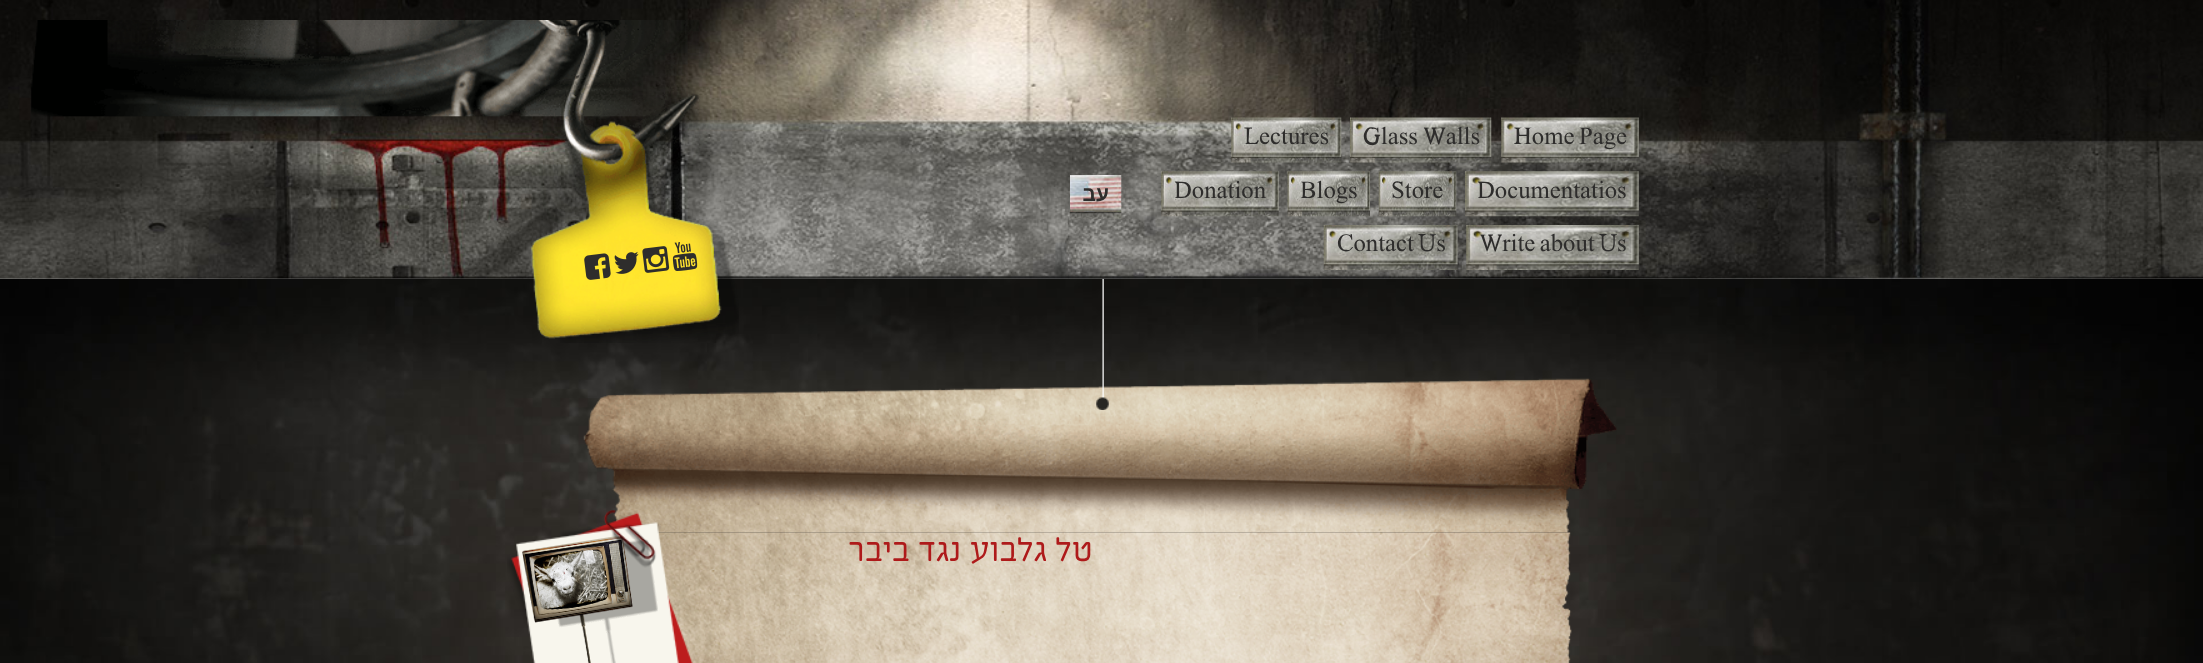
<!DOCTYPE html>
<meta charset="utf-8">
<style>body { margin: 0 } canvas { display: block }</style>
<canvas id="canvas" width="2203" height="663"></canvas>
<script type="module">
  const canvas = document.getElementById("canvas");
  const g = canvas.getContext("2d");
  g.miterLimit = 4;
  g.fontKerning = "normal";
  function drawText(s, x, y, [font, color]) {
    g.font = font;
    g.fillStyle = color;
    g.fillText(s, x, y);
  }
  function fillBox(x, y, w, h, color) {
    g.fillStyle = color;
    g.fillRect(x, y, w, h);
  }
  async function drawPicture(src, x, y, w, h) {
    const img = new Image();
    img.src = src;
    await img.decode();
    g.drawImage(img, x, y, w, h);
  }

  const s1 = ["bold 21px Liberation Sans", "#2E2D2C"];
  const s2 = ["bold 25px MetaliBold", "#2E2D2C"];
  const s3 = ["40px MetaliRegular", "#AE1A1A"];

  fillBox(0, 0, 2203, 663, "#FFFFFF");
  await drawPicture("pic17.png", 0, 278, 2203, 385);
  await drawPicture("pic19.png", 583, 378, 1034, 155);
  await drawPicture("pic18.png", 1096, 278, 13, 132);
  await drawPicture("pic1.png", 0, 0, 2203, 279);
  await drawPicture("pic2.png", 31, 20, 708, 323);
  await drawPicture("pic3.png", 584, 253, 27, 27);
  await drawPicture("pic4.png", 614, 251, 25, 23);
  await drawPicture("pic5.png", 642, 246, 28, 27);
  await drawPicture("pic6.png", 672, 242, 26, 29);
  await drawPicture("pic7.png", 1070, 175, 52, 44);
  g.direction = "rtl";
  drawText("עב", 1109, 201, s1);
  await drawPicture("pic8.png", 1231, 117, 111, 46);
  g.direction = "ltr";
  drawText("Lectures", 1244, 144, s2);
  await drawPicture("pic9.png", 1350, 117, 142, 46);
  drawText("Glass Walls", 1363, 144, s2);
  await drawPicture("pic10.png", 1501, 117, 138, 46);
  drawText("Home Page", 1514, 144, s2);
  await drawPicture("pic11.png", 1161, 171, 118, 46);
  drawText("Donation", 1174, 198, s2);
  await drawPicture("pic12.png", 1287, 171, 83, 46);
  drawText("Blogs", 1300, 198, s2);
  await drawPicture("pic13.png", 1378, 171, 79, 46);
  drawText("Store", 1391, 198, s2);
  await drawPicture("pic14.png", 1465, 171, 174, 46);
  drawText("Documentatios", 1477, 198, s2);
  await drawPicture("pic15.png", 1323, 225, 135, 45);
  drawText("Contact Us", 1337, 251, s2);
  await drawPicture("pic16.png", 1466, 225, 173, 45);
  drawText("Write about Us", 1479, 251, s2);
  await drawPicture("pic20.png", 657, 532, 915, 131);
  await drawPicture("pic21.png", 507, 512, 186, 151);
  await drawPicture("pic23.png", 522, 536, 136, 127);
  await drawPicture("pic22.png", 603, 510, 54, 58);
  g.direction = "rtl";
  drawText("טל גלבוע נגד ביבר", 1093, 561, s3);
</script>
